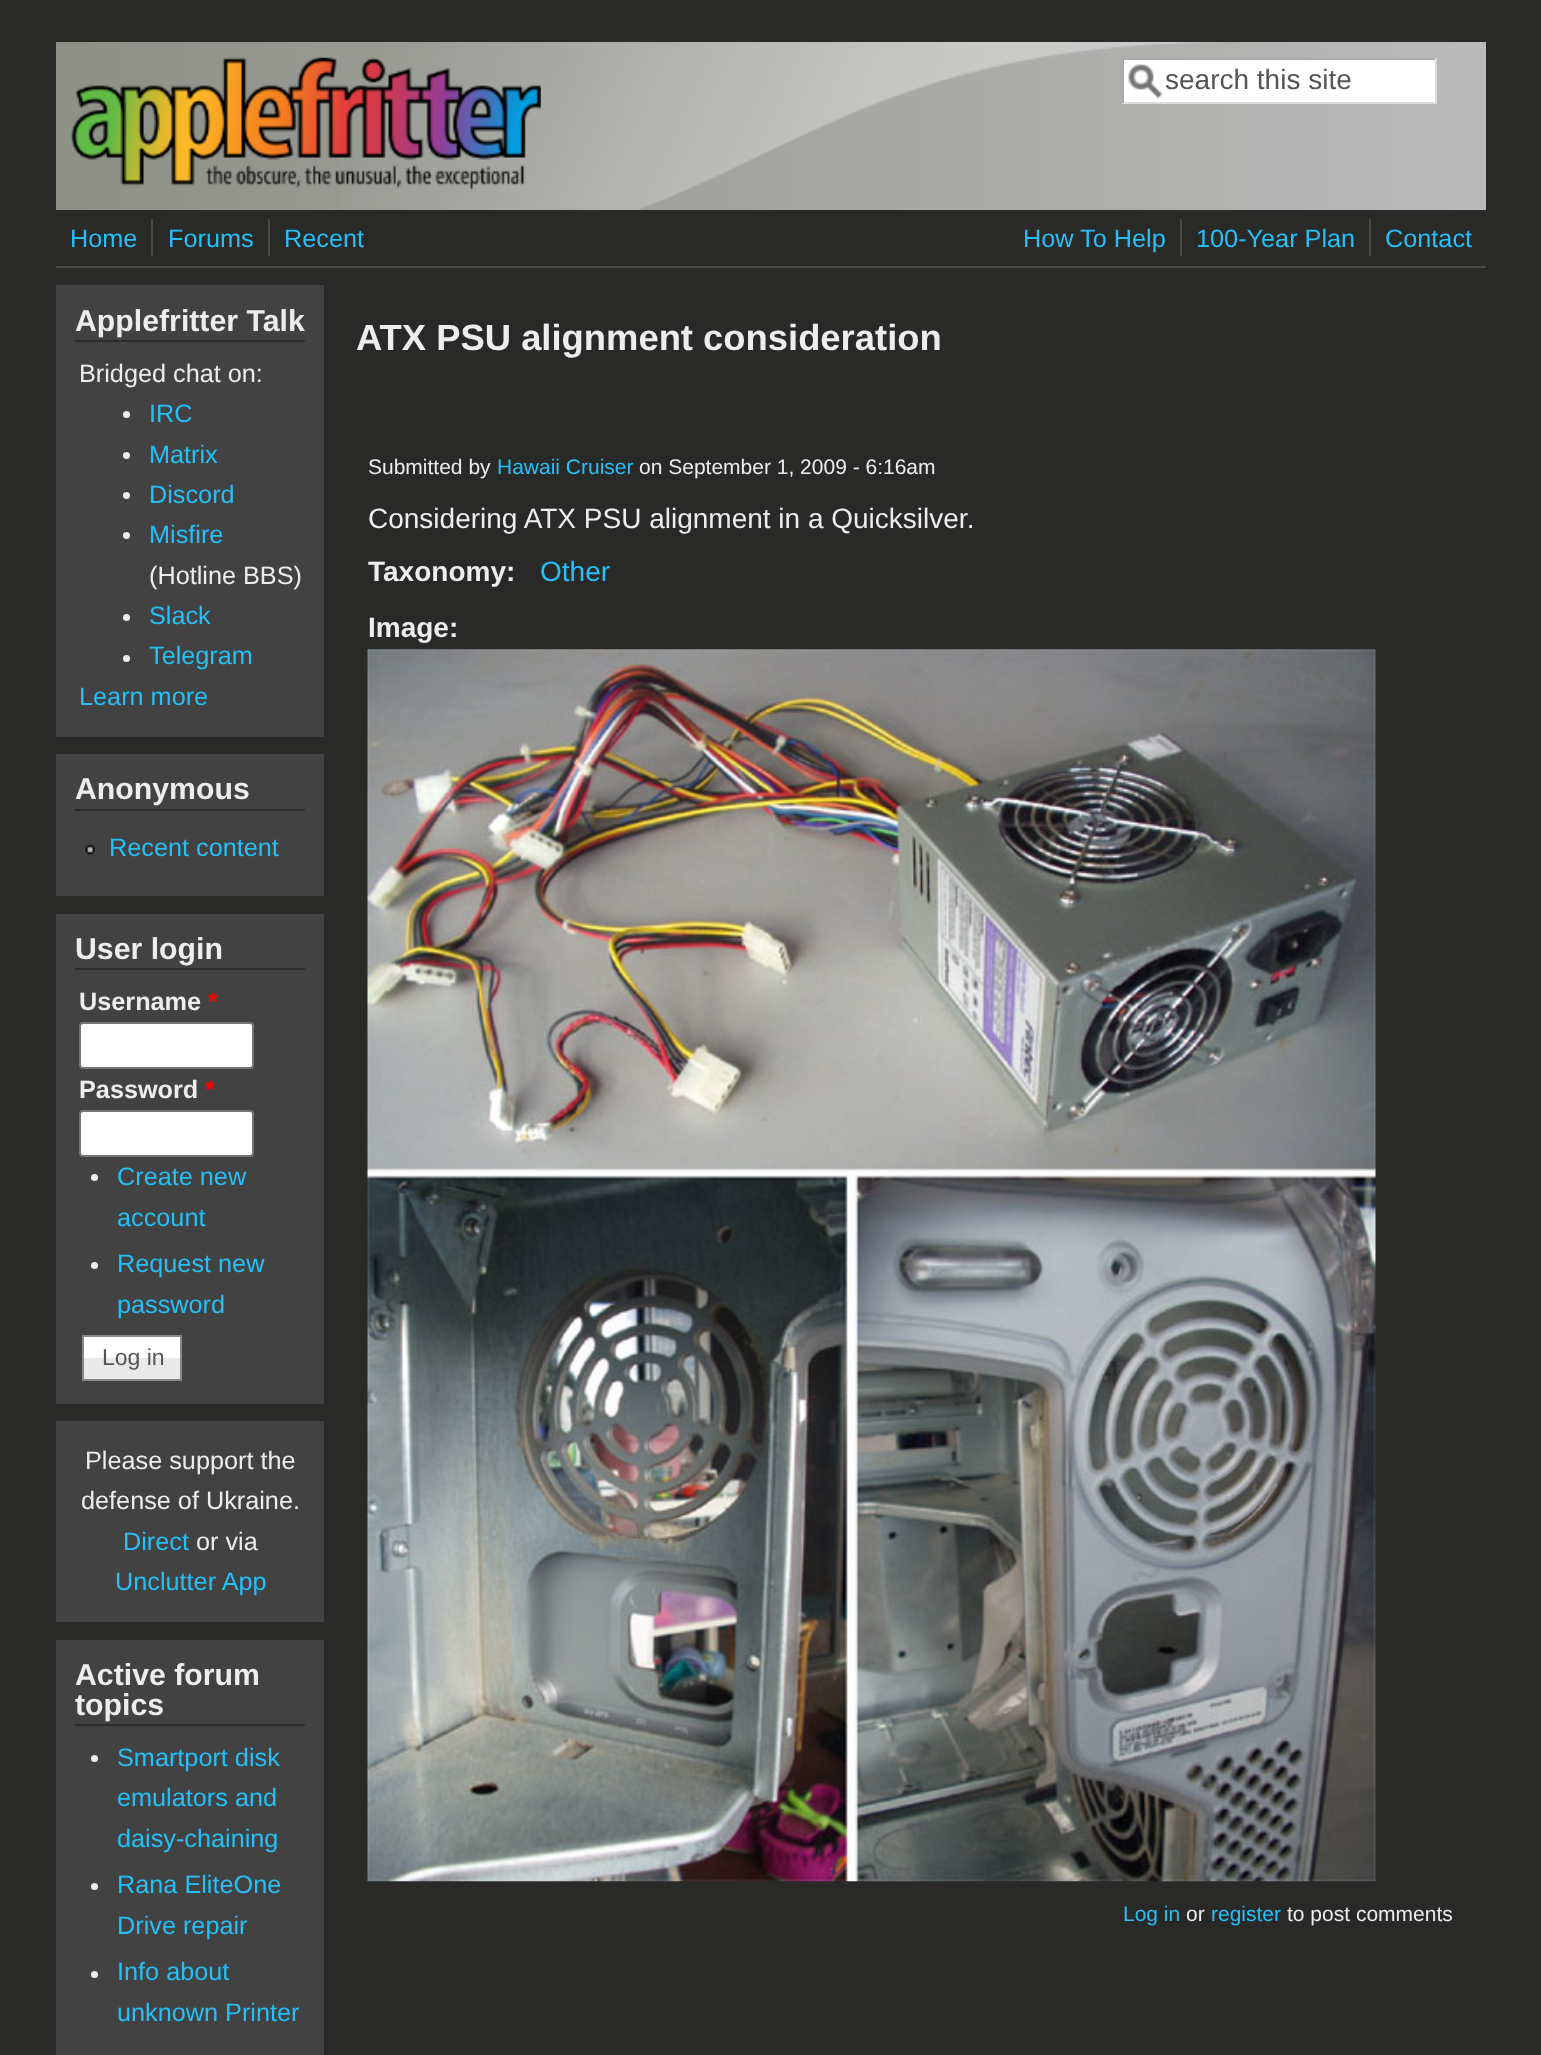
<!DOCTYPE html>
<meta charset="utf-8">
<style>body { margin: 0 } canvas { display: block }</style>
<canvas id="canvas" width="1541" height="2055"></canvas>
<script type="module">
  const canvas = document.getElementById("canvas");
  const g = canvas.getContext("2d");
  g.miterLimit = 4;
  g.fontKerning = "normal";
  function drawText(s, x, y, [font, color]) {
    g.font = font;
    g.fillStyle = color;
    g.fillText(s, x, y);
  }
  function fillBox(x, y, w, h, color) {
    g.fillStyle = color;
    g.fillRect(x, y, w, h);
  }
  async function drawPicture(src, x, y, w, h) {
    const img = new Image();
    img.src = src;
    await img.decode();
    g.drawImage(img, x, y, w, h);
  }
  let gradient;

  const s1 = ["28px Liberation Sans", "#555555"];
  const s2 = ["25.25px Liberation Sans", "#26C0F7"];
  const s3 = ["bold 30.25px Liberation Sans", "#ECEDEC"];
  const s4 = ["25.25px Liberation Sans", "#ECEDEC"];
  const s5 = ["bold 25.25px Liberation Sans", "#ECEDEC"];
  const s6 = ["bold 25.25px Liberation Sans", "#FF0000"];
  const s7 = ["23px Liberation Sans", "#555555"];
  const s8 = ["bold 36.4px Liberation Sans", "#ECEDEC"];
  const s9 = ["21px Liberation Sans", "#ECEDEC"];
  const s10 = ["21px Liberation Sans", "#26C0F7"];
  const s11 = ["28px Liberation Sans", "#ECEDEC"];
  const s12 = ["bold 28px Liberation Sans", "#ECEDEC"];
  const s13 = ["28px Liberation Sans", "#26C0F7"];

  fillBox(0, 0, 1541, 2055, "#292928");
  gradient = g.createLinearGradient(56, 126, 1486, 126);
  gradient.addColorStop(0, "#8D9087");
  gradient.addColorStop(1, "#BABABA");
  g.fillStyle = gradient;
  g.fillRect(56, 42, 1430, 168);
  await drawPicture("pic1.png", 340, 42, 980, 168);
  await drawPicture("pic2.png", 71, 57, 470, 133);
  fillBox(1124, 60, 311, 42, "#FFFFFF");
  await drawPicture("pic3.png", 1128, 64, 35, 35);
  fillBox(1122, 58, 315, 2, "#AAAAAA");
  fillBox(1435, 58, 2, 45, "#DDDDDD");
  fillBox(1122, 102, 315, 2, "#DDDDDD");
  fillBox(1122, 58, 2, 45, "#AAAAAA");
  drawText("search this site", 1165, 89, s1);
  fillBox(56, 266, 1430, 2, "#494A45");
  drawText("Home", 70, 247, s2);
  fillBox(151, 219, 2, 37, "#494A45");
  drawText("Forums", 168, 247, s2);
  fillBox(268, 219, 2, 37, "#494A45");
  drawText("Recent", 284, 247, s2);
  drawText("How To Help", 1023, 247, s2);
  fillBox(1180, 219, 2, 37, "#494A45");
  drawText("100-Year Plan", 1196, 247, s2);
  fillBox(1369, 219, 2, 37, "#494A45");
  drawText("Contact", 1385, 247, s2);
  fillBox(56, 285, 268, 452, "#424242");
  fillBox(75, 340, 230, 2, "#2C2C2C");
  drawText("Applefritter Talk", 75, 331, s3);
  drawText("Bridged chat on:", 79, 382, s4);
  g.beginPath();
  g.arc(126.5, 414.5, 3.5, 0, Math.PI * 2);
  g.fill();
  drawText("IRC", 149, 422, s2);
  g.fillStyle = "#ECEDEC";
  g.beginPath();
  g.arc(126.5, 455.5, 3.5, 0, Math.PI * 2);
  g.fill();
  drawText("Matrix", 149, 463, s2);
  g.fillStyle = "#ECEDEC";
  g.beginPath();
  g.arc(126.5, 495.5, 3.5, 0, Math.PI * 2);
  g.fill();
  drawText("Discord", 149, 503, s2);
  g.fillStyle = "#ECEDEC";
  g.beginPath();
  g.arc(126.5, 535.5, 3.5, 0, Math.PI * 2);
  g.fill();
  drawText("Misfire", 149, 543, s2);
  drawText("(Hotline BBS)", 149, 584, s4);
  g.beginPath();
  g.arc(126.5, 617.5, 3.5, 0, Math.PI * 2);
  g.fill();
  drawText("Slack", 149, 624, s2);
  g.fillStyle = "#ECEDEC";
  g.beginPath();
  g.arc(126.5, 658.5, 3.5, 0, Math.PI * 2);
  g.fill();
  drawText("Telegram", 149, 664, s2);
  drawText("Learn more", 79, 705, s2);
  fillBox(56, 754, 268, 142, "#424242");
  fillBox(75, 809, 230, 2, "#2C2C2C");
  drawText("Anonymous", 75, 799, s3);
  await drawPicture("pic4.png", 85, 845, 10, 10);
  drawText("Recent content", 109, 856, s2);
  fillBox(56, 914, 268, 490, "#424242");
  fillBox(75, 968, 230, 2, "#2C2C2C");
  drawText("User login", 75, 959, s3);
  drawText("Username", 79, 1010, s5);
  drawText("*", 208, 1010, s6);
  g.fillStyle = "#FFFFFF";
  g.beginPath();
  g.roundRect(80, 1023, 173, 45, 3);
  g.fill();
  g.strokeStyle = "#767676";
  g.lineWidth = 2;
  g.stroke();
  drawText("Password", 79, 1098, s5);
  drawText("*", 205, 1098, s6);
  g.fillStyle = "#FFFFFF";
  g.beginPath();
  g.roundRect(80, 1111, 173, 45, 3);
  g.fill();
  g.stroke();
  g.fillStyle = "#ECEDEC";
  g.beginPath();
  g.arc(94.5, 1177.5, 3.5, 0, Math.PI * 2);
  g.fill();
  drawText("Create new", 117, 1185, s2);
  drawText("account", 117, 1226, s2);
  g.fillStyle = "#ECEDEC";
  g.beginPath();
  g.arc(94.5, 1265.5, 3.5, 0, Math.PI * 2);
  g.fill();
  drawText("Request new", 117, 1272, s2);
  drawText("password", 117, 1313, s2);
  fillBox(84, 1337, 96, 21, "#FFFFFF");
  fillBox(84, 1358, 96, 21, "#E9E9E9");
  g.strokeStyle = "#888888";
  g.strokeRect(83, 1336, 98, 44);
  drawText("Log in", 102, 1365, s7);
  fillBox(56, 1421, 268, 201, "#424242");
  drawText("Please support the", 85, 1469, s4);
  drawText("defense of Ukraine.", 81, 1509, s4);
  drawText("Direct", 123, 1550, s2);
  drawText("or via", 196, 1550, s4);
  drawText("Unclutter App", 115, 1590, s2);
  fillBox(56, 1640, 268, 415, "#424242");
  fillBox(75, 1724, 230, 2, "#2C2C2C");
  drawText("Active forum", 75, 1685, s3);
  drawText("topics", 75, 1715, s3);
  g.beginPath();
  g.arc(94.5, 1758.5, 3.5, 0, Math.PI * 2);
  g.fill();
  drawText("Smartport disk", 117, 1766, s2);
  drawText("emulators and", 117, 1806, s2);
  drawText("daisy-chaining", 117, 1847, s2);
  g.fillStyle = "#ECEDEC";
  g.beginPath();
  g.arc(94.5, 1886.5, 3.5, 0, Math.PI * 2);
  g.fill();
  drawText("Rana EliteOne", 117, 1893, s2);
  drawText("Drive repair", 117, 1934, s2);
  g.fillStyle = "#ECEDEC";
  g.beginPath();
  g.arc(94.5, 1974.5, 3.5, 0, Math.PI * 2);
  g.fill();
  drawText("Info about", 117, 1980, s2);
  drawText("unknown Printer", 117, 2021, s2);
  drawText("ATX PSU alignment consideration", 356, 350, s8);
  drawText("Submitted by", 368, 474, s9);
  drawText("Hawaii Cruiser", 497, 474, s10);
  drawText("on September 1, 2009 - 6:16am", 639, 474, s9);
  drawText("Considering ATX PSU alignment in a Quicksilver.", 368, 528, s11);
  drawText("Taxonomy:", 368, 581, s12);
  drawText("Other", 540, 581, s13);
  drawText("Image:", 368, 637, s12);
  await drawPicture("pic5.png", 367, 649, 1009, 1233);
  drawText("Log in", 1123, 1921, s10);
  drawText("or", 1186, 1921, s9);
  drawText("register", 1211, 1921, s10);
  drawText("to post comments", 1287, 1921, s9);
</script>
